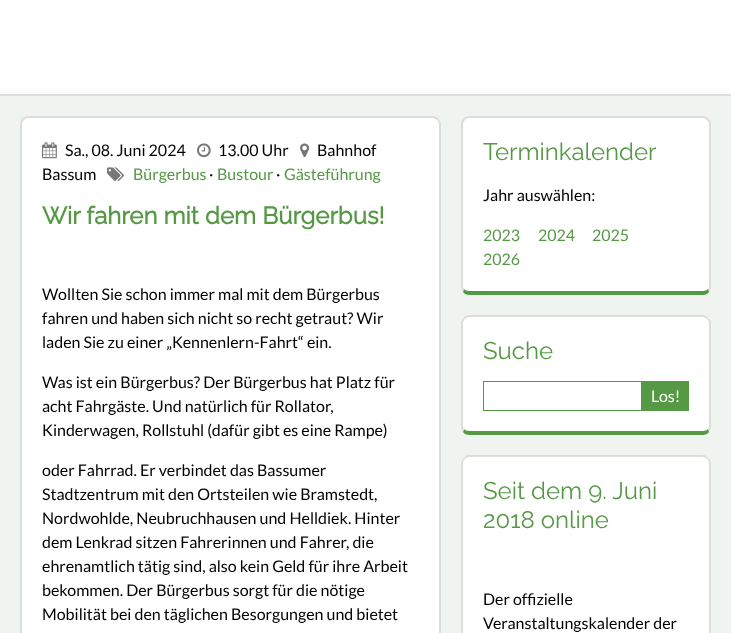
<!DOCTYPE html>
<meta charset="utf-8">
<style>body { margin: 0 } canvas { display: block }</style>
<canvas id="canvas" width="731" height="633"></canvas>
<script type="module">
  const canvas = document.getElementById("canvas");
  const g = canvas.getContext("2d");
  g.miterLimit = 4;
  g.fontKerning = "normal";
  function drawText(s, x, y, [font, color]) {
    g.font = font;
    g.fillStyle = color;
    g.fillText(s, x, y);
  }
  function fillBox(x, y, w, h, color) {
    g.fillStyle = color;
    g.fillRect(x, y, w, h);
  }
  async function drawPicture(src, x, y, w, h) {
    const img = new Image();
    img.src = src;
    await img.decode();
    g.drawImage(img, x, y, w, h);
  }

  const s1 = ["16px Lato", "#000000"];
  const s2 = ["16px Lato", "#559944"];
  const s3 = ["bold 24px Raleway", "#559944"];
  const s4 = ["100 24px Raleway", "#559944"];
  const s5 = ["16px Lato", "#FFFFFF"];

  fillBox(0, 0, 731, 633, "#F0F4F0");
  fillBox(0, 0, 731, 94, "#FFFFFF");
  fillBox(0, 94, 731, 2, "#DDDDDD");
  g.fillStyle = "#FFFFFF";
  g.beginPath();
  g.moveTo(28, 118);
  g.lineTo(433, 118);
  g.bezierCurveTo(436, 118, 439, 121, 439, 124);
  g.lineTo(439, 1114);
  g.bezierCurveTo(439, 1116, 436, 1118, 433, 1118);
  g.lineTo(28, 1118);
  g.bezierCurveTo(25, 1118, 22, 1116, 22, 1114);
  g.lineTo(22, 124);
  g.bezierCurveTo(22, 121, 25, 118, 28, 118);
  g.closePath();
  g.fill();
  g.fillStyle = "#DDDDDD";
  g.beginPath();
  g.moveTo(28, 116);
  g.bezierCurveTo(26, 116, 24, 117, 22, 118);
  g.lineTo(24, 120);
  g.bezierCurveTo(25, 119, 26, 118, 28, 118);
  g.lineTo(433, 118);
  g.bezierCurveTo(434, 118, 436, 119, 437, 120);
  g.lineTo(438, 118);
  g.bezierCurveTo(437, 117, 435, 116, 433, 116);
  g.closePath();
  g.fill();
  g.beginPath();
  g.moveTo(441, 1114);
  g.lineTo(441, 123);
  g.lineTo(438, 118);
  g.lineTo(437, 120);
  g.bezierCurveTo(438, 121, 439, 122, 439, 124);
  g.lineTo(439, 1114);
  g.lineTo(438, 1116);
  g.lineTo(439, 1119);
  g.bezierCurveTo(440, 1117, 441, 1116, 441, 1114);
  g.closePath();
  g.fill();
  g.beginPath();
  g.moveTo(20, 124);
  g.lineTo(20, 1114);
  g.bezierCurveTo(20, 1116, 21, 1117, 22, 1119);
  g.lineTo(23, 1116);
  g.lineTo(22, 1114);
  g.lineTo(22, 124);
  g.bezierCurveTo(22, 122, 23, 121, 24, 120);
  g.lineTo(22, 118);
  g.bezierCurveTo(21, 120, 20, 122, 20, 124);
  g.closePath();
  g.fill();
  await drawPicture("pic1.png", 42, 142, 15, 17);
  drawText("Sa., 08. Juni 2024", 65, 156, s1);
  await drawPicture("pic2.png", 197, 143, 14, 15);
  drawText("13.00 Uhr", 218, 156, s1);
  await drawPicture("pic3.png", 300, 143, 10, 15);
  drawText("Bahnhof", 317, 156, s1);
  drawText("Bassum", 42, 180, s1);
  await drawPicture("pic4.png", 107, 167, 17, 14);
  drawText("Bürgerbus", 133, 180, s2);
  drawText("·", 209, 180, s1);
  drawText("Bustour", 217, 180, s2);
  drawText("·", 276, 180, s1);
  drawText("Gästeführung", 284, 180, s2);
  drawText("Wir fahren mit dem Bürgerbus!", 42, 224, s3);
  drawText("Wollten Sie schon immer mal mit dem Bürgerbus", 42, 300, s1);
  drawText("fahren und haben sich nicht so recht getraut? Wir", 42, 324, s1);
  drawText("laden Sie zu einer „Kennenlern-Fahrt“ ein.", 42, 348, s1);
  drawText("Was ist ein Bürgerbus? Der Bürgerbus hat Platz für", 42, 388, s1);
  drawText("acht Fahrgäste. Und natürlich für Rollator,", 42, 412, s1);
  drawText("Kinderwagen, Rollstuhl (dafür gibt es eine Rampe)", 42, 436, s1);
  drawText("oder Fahrrad. Er verbindet das Bassumer", 42, 476, s1);
  drawText("Stadtzentrum mit den Ortsteilen wie Bramstedt,", 42, 500, s1);
  drawText("Nordwohlde, Neubruchhausen und Helldiek. Hinter", 42, 524, s1);
  drawText("dem Lenkrad sitzen Fahrerinnen und Fahrer, die", 42, 548, s1);
  drawText("ehrenamtlich tätig sind, also kein Geld für ihre Arbeit", 42, 572, s1);
  drawText("bekommen. Der Bürgerbus sorgt für die nötige", 42, 596, s1);
  drawText("Mobilität bei den täglichen Besorgungen und bietet", 42, 620, s1);
  g.fillStyle = "#FFFFFF";
  g.beginPath();
  g.moveTo(469, 118);
  g.lineTo(703, 118);
  g.bezierCurveTo(706, 118, 709, 121, 709, 124);
  g.lineTo(709, 287);
  g.bezierCurveTo(709, 289, 706, 291, 703, 291);
  g.lineTo(469, 291);
  g.bezierCurveTo(466, 291, 463, 289, 463, 287);
  g.lineTo(463, 124);
  g.bezierCurveTo(463, 121, 466, 118, 469, 118);
  g.closePath();
  g.fill();
  g.fillStyle = "#DDDDDD";
  g.beginPath();
  g.moveTo(469, 116);
  g.bezierCurveTo(467, 116, 465, 117, 464, 118);
  g.lineTo(465, 120);
  g.bezierCurveTo(466, 119, 468, 118, 469, 118);
  g.lineTo(703, 118);
  g.bezierCurveTo(704, 118, 706, 119, 707, 120);
  g.lineTo(708, 118);
  g.bezierCurveTo(707, 117, 705, 116, 703, 116);
  g.closePath();
  g.fill();
  g.beginPath();
  g.moveTo(711, 287);
  g.lineTo(711, 124);
  g.bezierCurveTo(711, 122, 710, 120, 708, 118);
  g.lineTo(707, 120);
  g.lineTo(709, 123);
  g.lineTo(709, 287);
  g.lineTo(708, 289);
  g.lineTo(709, 292);
  g.bezierCurveTo(710, 290, 711, 289, 711, 287);
  g.closePath();
  g.fill();
  g.fillStyle = "#559944";
  g.beginPath();
  g.moveTo(469, 295);
  g.lineTo(703, 295);
  g.bezierCurveTo(705, 295, 708, 294, 709, 292);
  g.lineTo(708, 289);
  g.bezierCurveTo(707, 290, 705, 291, 703, 291);
  g.lineTo(469, 291);
  g.bezierCurveTo(467, 291, 465, 290, 464, 289);
  g.lineTo(463, 292);
  g.bezierCurveTo(464, 294, 467, 295, 469, 295);
  g.closePath();
  g.fill();
  g.fillStyle = "#DDDDDD";
  g.beginPath();
  g.moveTo(461, 124);
  g.lineTo(461, 287);
  g.bezierCurveTo(461, 289, 462, 290, 463, 292);
  g.lineTo(464, 289);
  g.lineTo(463, 287);
  g.lineTo(463, 123);
  g.lineTo(465, 120);
  g.lineTo(464, 118);
  g.bezierCurveTo(462, 120, 461, 122, 461, 124);
  g.closePath();
  g.fill();
  drawText("Terminkalender", 483, 160, s4);
  drawText("Jahr auswählen:", 483, 201, s1);
  drawText("2023", 483, 241, s2);
  drawText("2024", 538, 241, s2);
  drawText("2025", 592, 241, s2);
  drawText("2026", 483, 265, s2);
  g.fillStyle = "#FFFFFF";
  g.beginPath();
  g.moveTo(469, 317);
  g.lineTo(703, 317);
  g.bezierCurveTo(706, 317, 709, 320, 709, 323);
  g.lineTo(709, 427);
  g.bezierCurveTo(709, 429, 706, 431, 703, 431);
  g.lineTo(469, 431);
  g.bezierCurveTo(466, 431, 463, 429, 463, 427);
  g.lineTo(463, 323);
  g.bezierCurveTo(463, 320, 466, 317, 469, 317);
  g.closePath();
  g.fill();
  g.fillStyle = "#DDDDDD";
  g.beginPath();
  g.moveTo(469, 315);
  g.bezierCurveTo(467, 315, 465, 316, 464, 318);
  g.lineTo(465, 319);
  g.bezierCurveTo(466, 318, 468, 317, 469, 317);
  g.lineTo(703, 317);
  g.bezierCurveTo(704, 317, 706, 318, 707, 319);
  g.lineTo(708, 318);
  g.bezierCurveTo(707, 316, 705, 315, 703, 315);
  g.closePath();
  g.fill();
  g.beginPath();
  g.moveTo(711, 427);
  g.lineTo(711, 323);
  g.bezierCurveTo(711, 321, 710, 319, 708, 318);
  g.lineTo(707, 319);
  g.lineTo(709, 322);
  g.lineTo(709, 427);
  g.lineTo(708, 429);
  g.lineTo(709, 432);
  g.bezierCurveTo(710, 430, 711, 429, 711, 427);
  g.closePath();
  g.fill();
  g.fillStyle = "#559944";
  g.beginPath();
  g.moveTo(469, 435);
  g.lineTo(703, 435);
  g.bezierCurveTo(705, 435, 708, 434, 709, 432);
  g.lineTo(708, 429);
  g.bezierCurveTo(707, 430, 705, 431, 703, 431);
  g.lineTo(469, 431);
  g.bezierCurveTo(467, 431, 465, 430, 464, 429);
  g.lineTo(463, 432);
  g.bezierCurveTo(464, 434, 467, 435, 469, 435);
  g.closePath();
  g.fill();
  g.fillStyle = "#DDDDDD";
  g.beginPath();
  g.moveTo(461, 323);
  g.lineTo(461, 427);
  g.bezierCurveTo(461, 429, 462, 430, 463, 432);
  g.lineTo(464, 429);
  g.lineTo(463, 427);
  g.lineTo(463, 322);
  g.lineTo(465, 319);
  g.lineTo(464, 318);
  g.bezierCurveTo(462, 319, 461, 321, 461, 323);
  g.closePath();
  g.fill();
  drawText("Suche", 483, 359, s4);
  g.strokeStyle = "#559944";
  g.strokeRect(483.5, 381.5, 158, 29);
  fillBox(642, 381, 47, 30, "#559944");
  drawText("Los!", 651, 402, s5);
  g.beginPath();
  g.moveTo(469, 457);
  g.lineTo(703, 457);
  g.bezierCurveTo(706, 457, 709, 460, 709, 463);
  g.lineTo(709, 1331);
  g.bezierCurveTo(709, 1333, 706, 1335, 703, 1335);
  g.lineTo(469, 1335);
  g.bezierCurveTo(466, 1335, 463, 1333, 463, 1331);
  g.lineTo(463, 463);
  g.bezierCurveTo(463, 460, 466, 457, 469, 457);
  g.closePath();
  g.fill();
  g.fillStyle = "#DDDDDD";
  g.beginPath();
  g.moveTo(469, 455);
  g.bezierCurveTo(467, 455, 465, 456, 464, 458);
  g.lineTo(465, 459);
  g.bezierCurveTo(466, 458, 468, 457, 469, 457);
  g.lineTo(703, 457);
  g.bezierCurveTo(704, 457, 706, 458, 707, 459);
  g.lineTo(708, 458);
  g.bezierCurveTo(707, 456, 705, 455, 703, 455);
  g.closePath();
  g.fill();
  g.beginPath();
  g.moveTo(711, 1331);
  g.lineTo(711, 463);
  g.bezierCurveTo(711, 461, 710, 459, 708, 458);
  g.lineTo(707, 459);
  g.bezierCurveTo(708, 460, 709, 461, 709, 463);
  g.lineTo(709, 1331);
  g.lineTo(708, 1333);
  g.lineTo(709, 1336);
  g.bezierCurveTo(710, 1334, 711, 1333, 711, 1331);
  g.closePath();
  g.fill();
  g.beginPath();
  g.moveTo(461, 463);
  g.lineTo(461, 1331);
  g.bezierCurveTo(461, 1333, 462, 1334, 463, 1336);
  g.lineTo(464, 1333);
  g.lineTo(463, 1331);
  g.lineTo(463, 463);
  g.bezierCurveTo(463, 461, 464, 460, 465, 459);
  g.lineTo(464, 458);
  g.bezierCurveTo(462, 459, 461, 461, 461, 463);
  g.closePath();
  g.fill();
  drawText("Seit dem 9. Juni", 483, 499, s4);
  drawText("2018 online", 483, 528, s4);
  drawText("Der offizielle", 483, 605, s1);
  drawText("Veranstaltungskalender der", 483, 629, s1);
</script>
